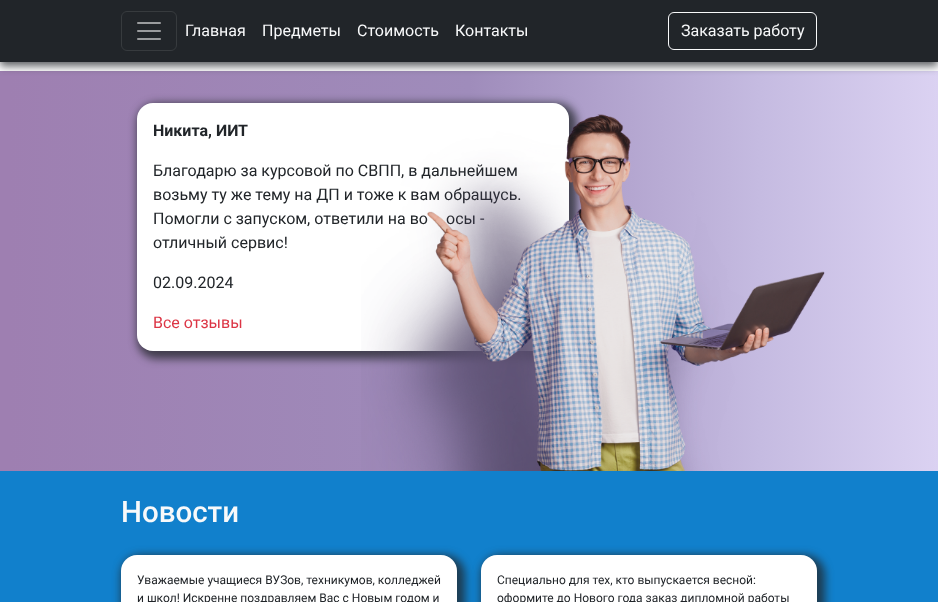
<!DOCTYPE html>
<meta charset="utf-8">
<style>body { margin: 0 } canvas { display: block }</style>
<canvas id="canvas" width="938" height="602"></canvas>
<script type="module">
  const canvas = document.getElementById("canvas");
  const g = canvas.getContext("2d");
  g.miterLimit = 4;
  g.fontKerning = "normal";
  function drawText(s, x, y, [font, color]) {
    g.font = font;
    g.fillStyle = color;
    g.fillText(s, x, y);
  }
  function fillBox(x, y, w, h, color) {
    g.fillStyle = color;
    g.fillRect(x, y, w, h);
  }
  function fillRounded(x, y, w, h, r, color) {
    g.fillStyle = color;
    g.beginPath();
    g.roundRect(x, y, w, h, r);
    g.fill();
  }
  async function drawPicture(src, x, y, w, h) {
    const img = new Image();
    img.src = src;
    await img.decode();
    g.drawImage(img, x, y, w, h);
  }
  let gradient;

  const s1 = ["16px Roboto", "#F8F9FA"];
  const s2 = ["bold 16px Roboto", "#212529"];
  const s3 = ["16px Roboto", "#212529"];
  const s4 = ["16px Roboto", "#DC3545"];
  const s5 = ["500 29.5px Roboto", "#F8F9FA"];
  const s6 = ["12px Roboto", "#212529"];

  fillBox(0, 0, 938, 602, "#FFFFFF");
  gradient = g.createLinearGradient(938, 271, 0, 271);
  gradient.addColorStop(0, "#DBD2F2");
  gradient.addColorStop(0.19, "#C5BBE1");
  gradient.addColorStop(0.5, "#9F8CBB");
  gradient.addColorStop(0.99, "#9E7FB1");
  g.fillStyle = gradient;
  g.fillRect(0, 71, 938, 400);
  g.fillStyle = "rgba(33, 37, 41, 0.75)";
  g.filter = "blur(4px)";
  g.beginPath();
  g.rect(0, 4, 938, 62);
  g.fill();
  g.filter = "none";
  fillBox(0, 0, 938, 62, "#212529");
  g.beginPath();
  g.roundRect(121.5, 11.5, 55, 39, 5.5);
  g.strokeStyle = "#373B3E";
  g.stroke();
  await drawPicture("pic1.png", 137, 22, 24, 18);
  drawText("Главная", 185, 36, s1);
  drawText("Предметы", 262, 36, s1);
  drawText("Стоимость", 357, 36, s1);
  drawText("Контакты", 455, 36, s1);
  g.beginPath();
  g.roundRect(668.5, 12.5, 148, 37, 5.5);
  g.strokeStyle = "#F8F9FA";
  g.stroke();
  drawText("Заказать работу", 681, 36, s1);
  g.fillStyle = "rgba(33, 37, 41, 0.75)";
  g.filter = "blur(4px)";
  g.beginPath();
  g.roundRect(137, 103, 440, 256, 20);
  g.fill();
  g.filter = "none";
  fillRounded(137, 103, 432, 248, 16, "#FFFFFF");
  drawText("Никита, ИИТ", 153, 136, s2);
  drawText("Благодарю за курсовой по СВПП, в дальнейшем", 153, 176, s3);
  drawText("возьму ту же тему на ДП и тоже к вам обращусь.", 153, 200, s3);
  drawText("Помогли с запуском, ответили на во", 153, 224, s3);
  drawText("осы -", 446, 224, s3);
  drawText("отличный сервис!", 153, 248, s3);
  drawText("02.09.2024", 153, 288, s3);
  drawText("Все отзывы", 153, 328, s4);
  await drawPicture("pic2.png", 361, 114, 464, 357);
  fillBox(0, 471, 938, 131, "#1180CC");
  drawText("Новости", 121, 522, s5);
  g.fillStyle = "rgba(33, 37, 41, 0.75)";
  g.filter = "blur(4px)";
  g.beginPath();
  g.roundRect(121, 555, 344, 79, 20);
  g.fill();
  g.filter = "none";
  fillRounded(121, 555, 336, 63, 16, "#FFFFFF");
  drawText("Уважаемые учащиеся ВУЗов, техникумов, колледжей", 137, 584, s6);
  drawText("и школ! Искренне поздравляем Вас с Новым годом и", 137, 602, s6);
  g.fillStyle = "rgba(33, 37, 41, 0.75)";
  g.filter = "blur(4px)";
  g.beginPath();
  g.roundRect(481, 555, 344, 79, 20);
  g.fill();
  g.filter = "none";
  fillRounded(481, 555, 336, 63, 16, "#FFFFFF");
  drawText("Специально для тех, кто выпускается весной:", 497, 584, s6);
  drawText("оформите до Нового года заказ дипломной работы", 497, 602, s6);
</script>
